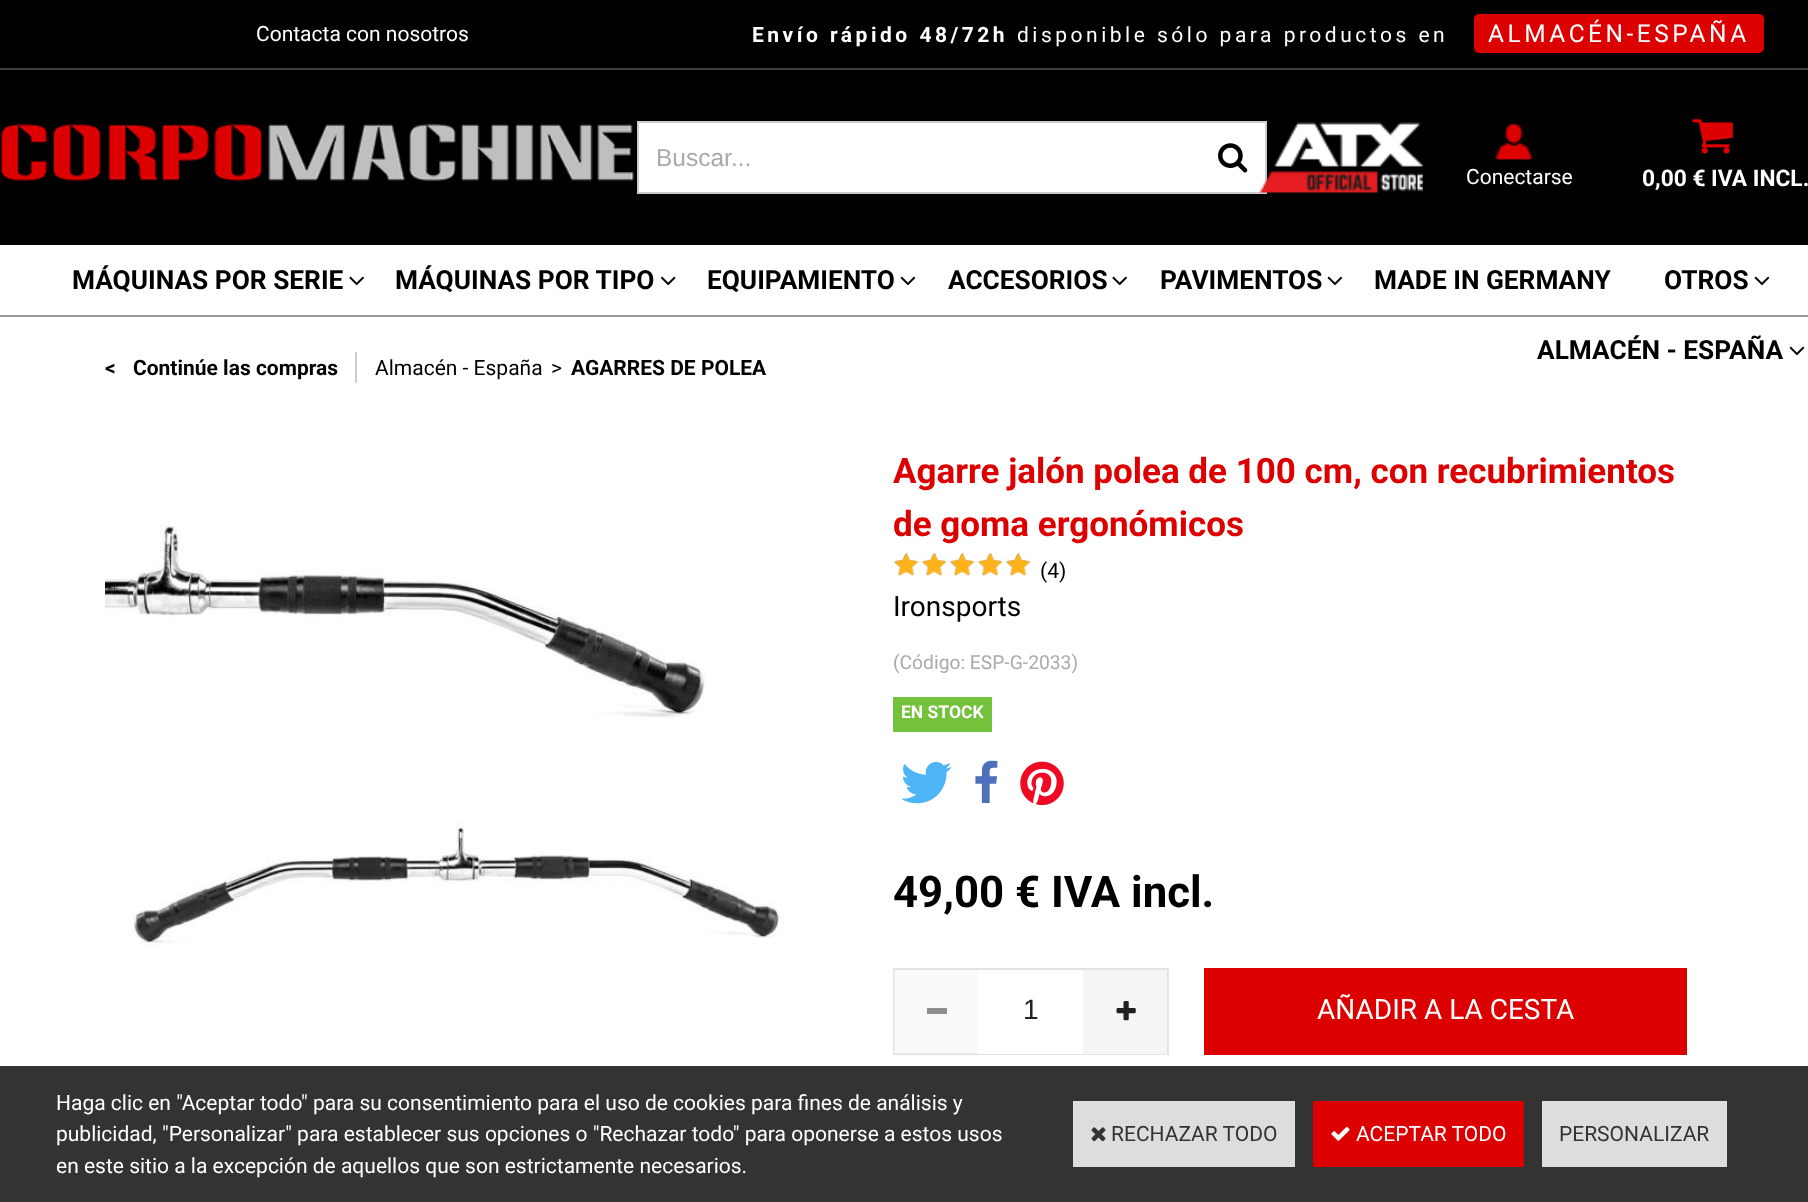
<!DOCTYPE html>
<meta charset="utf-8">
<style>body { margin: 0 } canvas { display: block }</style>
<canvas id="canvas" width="1808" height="1202"></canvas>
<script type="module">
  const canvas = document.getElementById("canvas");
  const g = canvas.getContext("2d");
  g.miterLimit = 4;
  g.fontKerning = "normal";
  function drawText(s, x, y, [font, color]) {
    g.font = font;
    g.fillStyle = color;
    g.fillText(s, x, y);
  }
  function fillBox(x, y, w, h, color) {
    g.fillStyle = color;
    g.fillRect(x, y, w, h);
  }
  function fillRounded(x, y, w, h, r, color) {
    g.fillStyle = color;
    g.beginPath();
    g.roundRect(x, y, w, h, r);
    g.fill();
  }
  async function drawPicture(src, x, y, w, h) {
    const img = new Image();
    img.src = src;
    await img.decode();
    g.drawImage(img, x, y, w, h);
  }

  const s1 = ["21px Roboto", "#FFFFFF"];
  const s2 = ["bold 21px Roboto", "#FFFFFF"];
  const s3 = ["24.5px Roboto", "#FFFFFF"];
  const s4 = ["24.5px Liberation Sans", "#AAAAAA"];
  const s5 = ["bold 22.75px Roboto", "#FFFFFF"];
  const s6 = ["bold 26.25px Roboto", "#000000"];
  const s7 = ["bold 21px Roboto", "#000000"];
  const s8 = ["21px Roboto", "#000000"];
  const s9 = ["bold 35px Roboto", "#DC0000"];
  const s10 = ["28px Roboto", "#000000"];
  const s11 = ["19.25px Roboto", "#AAAAAA"];
  const s12 = ["bold 17.5px Roboto", "#FFFFFF"];
  const s13 = ["bold 43.75px Roboto", "#000000"];
  const s14 = ["28px Liberation Sans", "#212121"];
  const s15 = ["28px Roboto", "#FFFFFF"];
  const s16 = ["21px Roboto", "#333333"];

  fillBox(0, 0, 1808, 1202, "#FFFFFF");
  fillBox(0, 0, 1808, 245, "#000000");
  fillBox(0, 315, 1808, 2, "#999999");
  fillBox(0, 68, 1808, 2, "#3E3E3E");
  drawText("Contacta con nosotros", 256, 41, s1);
  g.letterSpacing = "3.5px";
  drawText("Envío rápido 48/72h", 752, 42, s2);
  drawText("disponible sólo para productos en", 1017, 42, s1);
  fillRounded(1474, 14, 290, 39, 5, "#DC0000");
  drawText("ALMACÉN-ESPAÑA", 1488, 42, s3);
  await drawPicture("pic1.png", 1, 124, 633, 57);
  g.beginPath();
  g.rect(638, 122, 628, 71);
  g.fill();
  g.strokeStyle = "#CCCCCC";
  g.lineWidth = 2;
  g.stroke();
  g.letterSpacing = "0px";
  drawText("Buscar...", 656, 166, s4);
  await drawPicture("pic2.png", 1218, 143, 30, 30);
  await drawPicture("pic3.png", 1259, 122, 164, 71);
  await drawPicture("pic4.png", 1495, 123, 37, 37);
  drawText("Conectarse", 1466, 184, s1);
  await drawPicture("pic5.png", 1692, 119, 41, 35);
  drawText("0,00 € IVA INCL.", 1642, 186, s5);
  drawText("MÁQUINAS POR SERIE", 72, 289, s6);
  await drawPicture("pic6.png", 349, 276, 15, 10);
  drawText("MÁQUINAS POR TIPO", 395, 289, s6);
  await drawPicture("pic7.png", 660, 276, 16, 10);
  drawText("EQUIPAMIENTO", 707, 289, s6);
  await drawPicture("pic8.png", 900, 276, 16, 10);
  drawText("ACCESORIOS", 948, 289, s6);
  await drawPicture("pic6.png", 1112, 276, 15, 10);
  drawText("PAVIMENTOS", 1160, 289, s6);
  await drawPicture("pic8.png", 1327, 276, 16, 10);
  drawText("MADE IN GERMANY", 1374, 289, s6);
  drawText("OTROS", 1664, 289, s6);
  await drawPicture("pic8.png", 1754, 276, 16, 10);
  drawText("ALMACÉN - ESPAÑA", 1537, 359, s6);
  await drawPicture("pic8.png", 1789, 346, 16, 10);
  drawText("<", 105, 375, s7);
  drawText("Continúe las compras", 133, 375, s7);
  fillBox(355, 352, 2, 31, "#CCCCCC");
  drawText("Almacén - España", 375, 375, s8);
  drawText(">", 551, 375, s8);
  drawText("AGARRES DE POLEA", 571, 375, s7);
  await drawPicture("pic9.png", 105, 525, 679, 421);
  drawText("Agarre jalón polea de 100 cm, con recubrimientos", 893, 483, s9);
  drawText("de goma ergonómicos", 893, 536, s9);
  await drawPicture("pic10.png", 894, 553, 137, 23);
  await drawPicture("pic11.png", 894, 553, 137, 23);
  drawText("(4)", 1040, 578, s8);
  drawText("Ironsports", 893, 616, s10);
  drawText("(Código: ESP-G-2033)", 893, 669, s11);
  fillBox(893, 697, 99, 35, "#74C13B");
  drawText("EN STOCK", 901, 718, s12);
  await drawPicture("pic12.png", 901, 762, 51, 42);
  await drawPicture("pic13.png", 975, 760, 23, 43);
  await drawPicture("pic14.png", 1020, 761, 44, 45);
  drawText("49,00 € IVA incl.", 893, 907, s13);
  g.strokeStyle = "#E3E3E3";
  g.strokeRect(894, 969, 274, 85);
  fillBox(894, 970, 84, 84, "rgba(245, 245, 245, 0.5)");
  fillBox(927, 1008, 20, 6, "#8E8E8E");
  fillBox(978, 1053, 105, 1, "#FFFFFF");
  drawText("1", 1023, 1019, s14);
  fillBox(1083, 970, 84, 84, "#F5F5F5");
  await drawPicture("pic15.png", 1116, 1001, 20, 20);
  fillBox(1204, 968, 483, 87, "#DC0000");
  drawText("AÑADIR A LA CESTA", 1317, 1019, s15);
  fillBox(0, 1066, 1808, 136, "#333333");
  drawText("Haga clic en \"Aceptar todo\" para su consentimiento para el uso de cookies para fines de análisis y", 56, 1110, s1);
  drawText("publicidad, \"Personalizar\" para establecer sus opciones o \"Rechazar todo\" para oponerse a estos usos", 56, 1141, s1);
  drawText("en este sitio a la excepción de aquellos que son estrictamente necesarios.", 56, 1173, s1);
  fillBox(1073, 1101, 222, 66, "#DDDDDD");
  await drawPicture("pic16.png", 1091, 1127, 15, 15);
  drawText("RECHAZAR TODO", 1111, 1141, s16);
  fillBox(1313, 1101, 211, 66, "#DC0000");
  await drawPicture("pic17.png", 1331, 1126, 19, 15);
  drawText("ACEPTAR TODO", 1356, 1141, s1);
  fillBox(1542, 1101, 185, 66, "#DDDDDD");
  drawText("PERSONALIZAR", 1559, 1141, s16);
</script>
